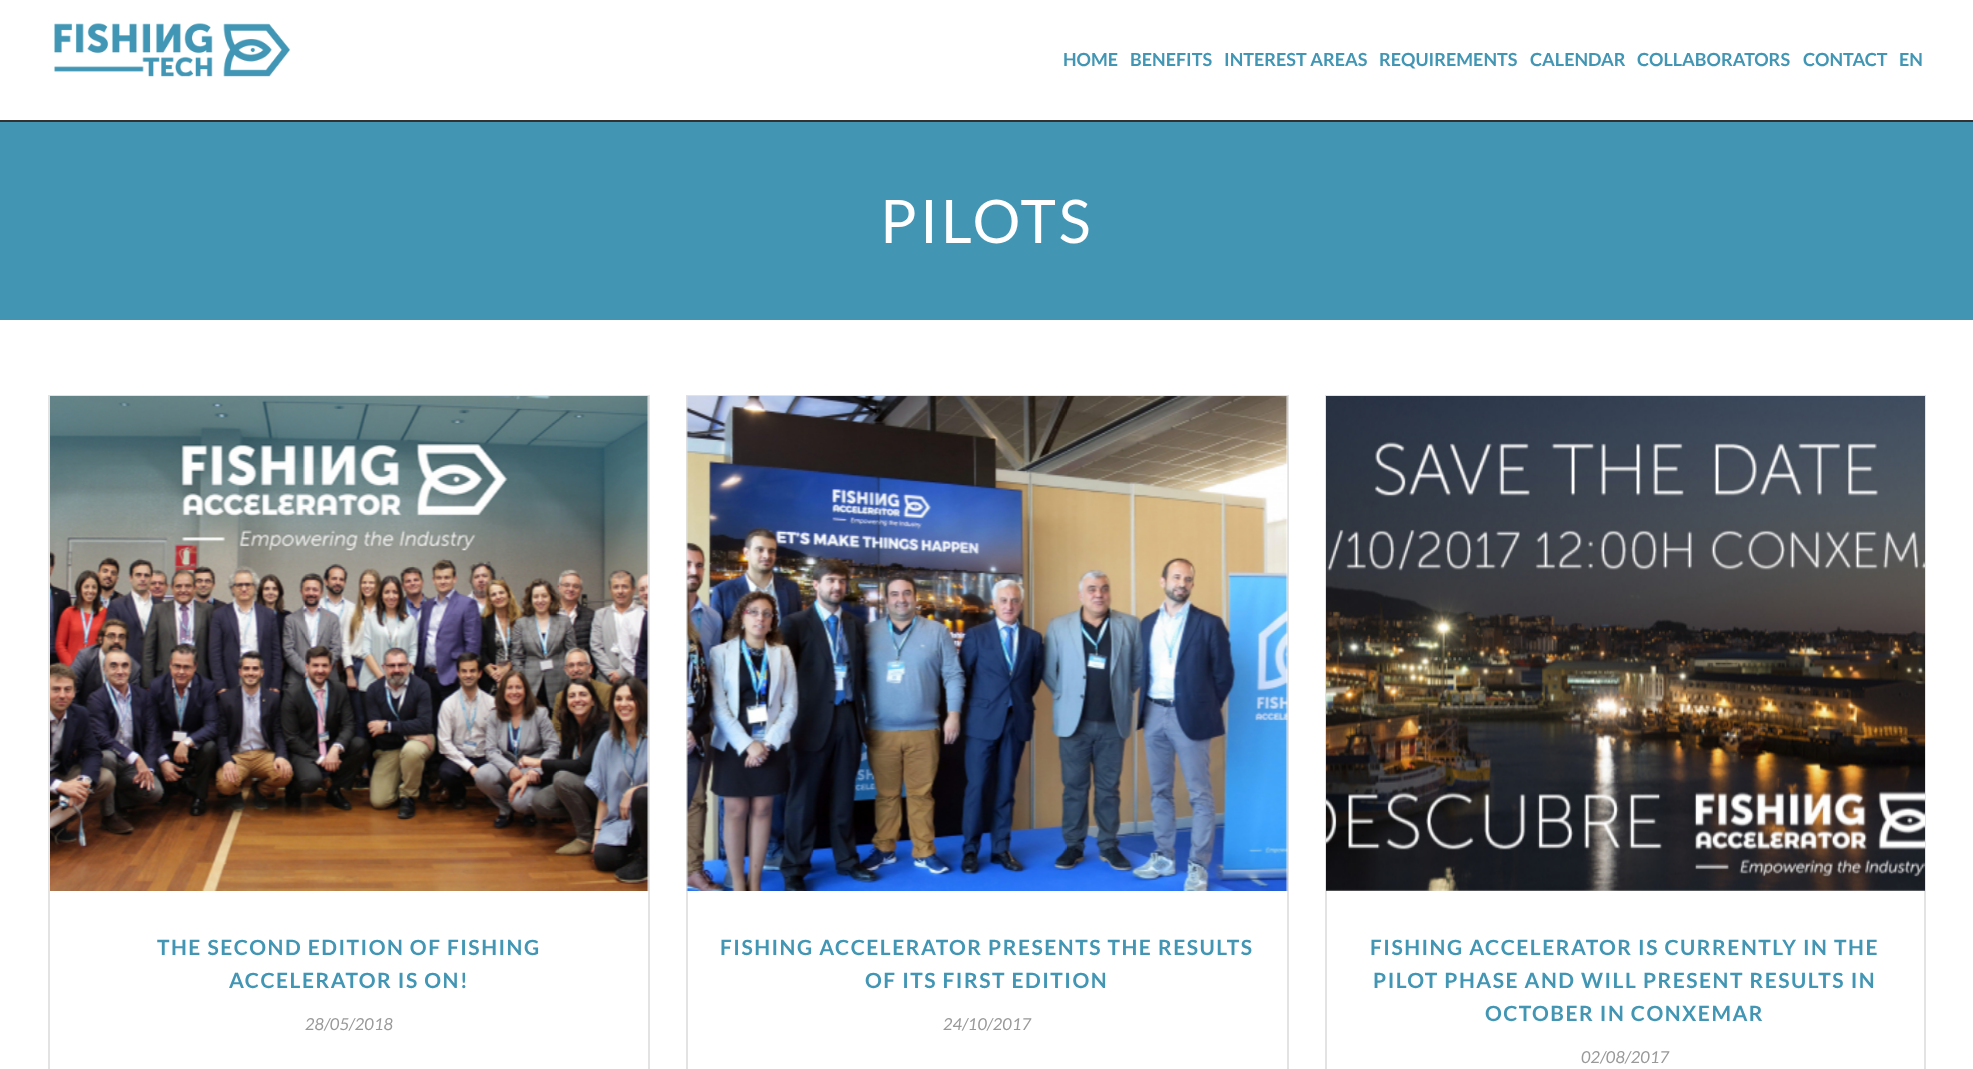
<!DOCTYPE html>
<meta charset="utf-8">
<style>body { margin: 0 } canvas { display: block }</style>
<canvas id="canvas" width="1973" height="1069"></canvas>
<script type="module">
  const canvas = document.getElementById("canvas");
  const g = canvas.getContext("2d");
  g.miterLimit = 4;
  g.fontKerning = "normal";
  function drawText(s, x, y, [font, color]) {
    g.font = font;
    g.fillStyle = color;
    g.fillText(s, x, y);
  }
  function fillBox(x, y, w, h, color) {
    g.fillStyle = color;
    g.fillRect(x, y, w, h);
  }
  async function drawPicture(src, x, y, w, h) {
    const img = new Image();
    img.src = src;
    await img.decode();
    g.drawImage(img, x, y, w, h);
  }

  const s1 = ["bold 18px Lato", "#4296B4"];
  const s2 = ["60px Lato", "#FFFFFF"];
  const s3 = ["bold 21px Lato", "#4296B4"];
  const s4 = ["italic 16.5px Lato", "#999999"];

  fillBox(0, 0, 1973, 1069, "#FFFFFF");
  fillBox(0, 120, 1973, 2, "#323232");
  await drawPicture("pic1.png", 54, 23, 236, 54);
  drawText("HOME", 1063, 66, s1);
  drawText("BENEFITS", 1130, 66, s1);
  drawText("INTEREST AREAS", 1224, 66, s1);
  drawText("REQUIREMENTS", 1379, 66, s1);
  drawText("CALENDAR", 1530, 66, s1);
  drawText("COLLABORATORS", 1637, 66, s1);
  drawText("CONTACT", 1803, 66, s1);
  drawText("EN", 1899, 66, s1);
  fillBox(0, 122, 1973, 198, "#4296B4");
  g.letterSpacing = "3px";
  drawText("PILOTS", 880, 243, s2);
  g.strokeStyle = "#E3E3E3";
  g.lineWidth = 2;
  g.strokeRect(49, 396, 600, 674);
  await drawPicture("pic2.png", 50, 396, 599, 495);
  g.letterSpacing = "1.5px";
  drawText("THE SECOND EDITION OF FISHING", 157, 955, s3);
  drawText("ACCELERATOR IS ON!", 229, 988, s3);
  g.letterSpacing = "0px";
  drawText("28/05/2018", 305, 1030, s4);
  g.strokeRect(687, 396, 601, 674);
  await drawPicture("pic3.png", 686, 396, 602, 495);
  g.letterSpacing = "1.5px";
  drawText("FISHING ACCELERATOR PRESENTS THE RESULTS", 720, 955, s3);
  drawText("OF ITS FIRST EDITION", 865, 988, s3);
  g.letterSpacing = "0px";
  drawText("24/10/2017", 943, 1030, s4);
  g.strokeRect(1326, 396, 599, 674);
  await drawPicture("pic4.png", 1326, 396, 599, 495);
  g.letterSpacing = "1.5px";
  drawText("FISHING ACCELERATOR IS CURRENTLY IN THE", 1370, 955, s3);
  drawText("PILOT PHASE AND WILL PRESENT RESULTS IN", 1373, 988, s3);
  drawText("OCTOBER IN CONXEMAR", 1485, 1021, s3);
  g.letterSpacing = "0px";
  drawText("02/08/2017", 1581, 1063, s4);
</script>
